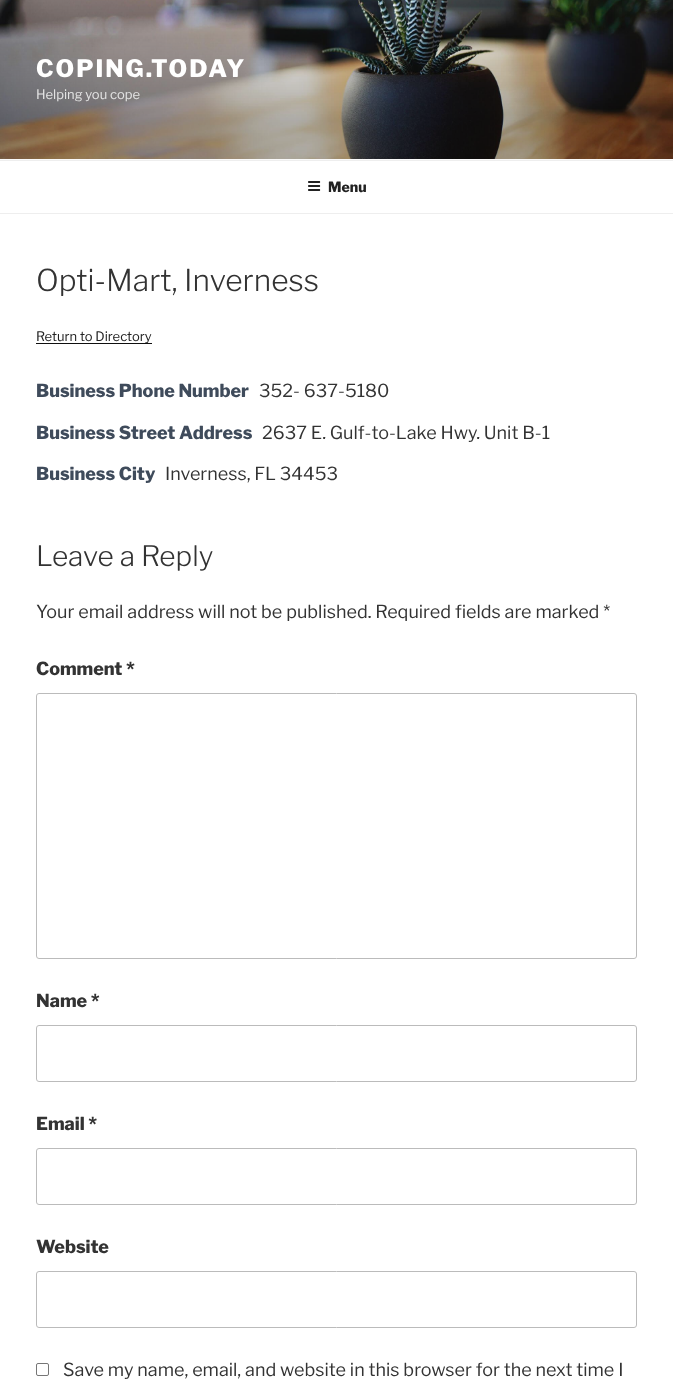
<!DOCTYPE html>
<meta charset="utf-8">
<style>body { margin: 0 } canvas { display: block }</style>
<canvas id="canvas" width="673" height="1389"></canvas>
<script type="module">
  const canvas = document.getElementById("canvas");
  const g = canvas.getContext("2d");
  g.miterLimit = 4;
  g.fontKerning = "normal";
  function drawText(s, x, y, [font, color]) {
    g.font = font;
    g.fillStyle = color;
    g.fillText(s, x, y);
  }
  function fillBox(x, y, w, h, color) {
    g.fillStyle = color;
    g.fillRect(x, y, w, h);
  }
  async function drawPicture(src, x, y, w, h) {
    const img = new Image();
    img.src = src;
    await img.decode();
    g.drawImage(img, x, y, w, h);
  }

  const s1 = ["100 24px Libre Franklin", "#FFFFFF"];
  const s2 = ["100 13px 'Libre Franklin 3'", "#E4E4E4"];
  const s3 = ["100 14px Libre Franklin", "#222222"];
  const s4 = ["100 30px 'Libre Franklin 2'", "#333333"];
  const s5 = ["100 13px 'Libre Franklin 3'", "#222222"];
  const s6 = ["100 18px Libre Franklin", "#3F4B5B"];
  const s7 = ["100 18px 'Libre Franklin 3'", "#333333"];
  const s8 = ["100 28px 'Libre Franklin 2'", "#333333"];
  const s9 = ["100 18px Libre Franklin", "#333333"];

  fillBox(0, 0, 673, 1389, "#FFFFFF");
  fillBox(0, 159, 673, 1, "#FAFAFA");
  await drawPicture("pic1.png", 0, 0, 673, 159);
  g.letterSpacing = "2px";
  drawText("COPING.TODAY", 36, 77, s1);
  g.letterSpacing = "0px";
  drawText("Helping you cope", 36, 99, s2);
  fillBox(0, 160, 673, 1, "#EEEEEE");
  fillBox(0, 213, 673, 1, "#EEEEEE");
  await drawPicture("pic2.png", 308, 181, 13, 10);
  drawText("Menu", 328, 192, s3);
  drawText("Opti-Mart, Inverness", 36, 291, s4);
  fillBox(36, 343, 116, 1, "#0F0F0F");
  drawText("Return to Directory", 36, 341, s5);
  drawText("Business Phone Number", 36, 397, s6);
  drawText("352- 637-5180", 259, 397, s7);
  drawText("Business Street Address", 36, 439, s6);
  drawText("2637 E. Gulf-to-Lake Hwy. Unit B-1", 262, 439, s7);
  drawText("Business City", 36, 480, s6);
  drawText("Inverness, FL 34453", 165, 480, s7);
  drawText("Leave a Reply", 36, 566, s8);
  drawText("Your email address will not be published. Required fields are marked *", 36, 618, s7);
  drawText("Comment *", 36, 675, s9);
  g.beginPath();
  g.roundRect(36.5, 693.5, 600, 265, 2.5);
  g.strokeStyle = "#BBBBBB";
  g.stroke();
  drawText("Name *", 36, 1007, s9);
  g.beginPath();
  g.roundRect(36.5, 1025.5, 600, 56, 2.5);
  g.stroke();
  drawText("Email *", 36, 1130, s9);
  g.beginPath();
  g.roundRect(36.5, 1148.5, 600, 56, 2.5);
  g.stroke();
  drawText("Website", 36, 1253, s9);
  g.beginPath();
  g.roundRect(36.5, 1271.5, 600, 56, 2.5);
  g.stroke();
  g.beginPath();
  g.roundRect(36.5, 1363.5, 12, 12, 1.5);
  g.strokeStyle = "#767676";
  g.stroke();
  drawText("Save my name, email, and website in this browser for the next time I", 63, 1376, s7);
</script>
